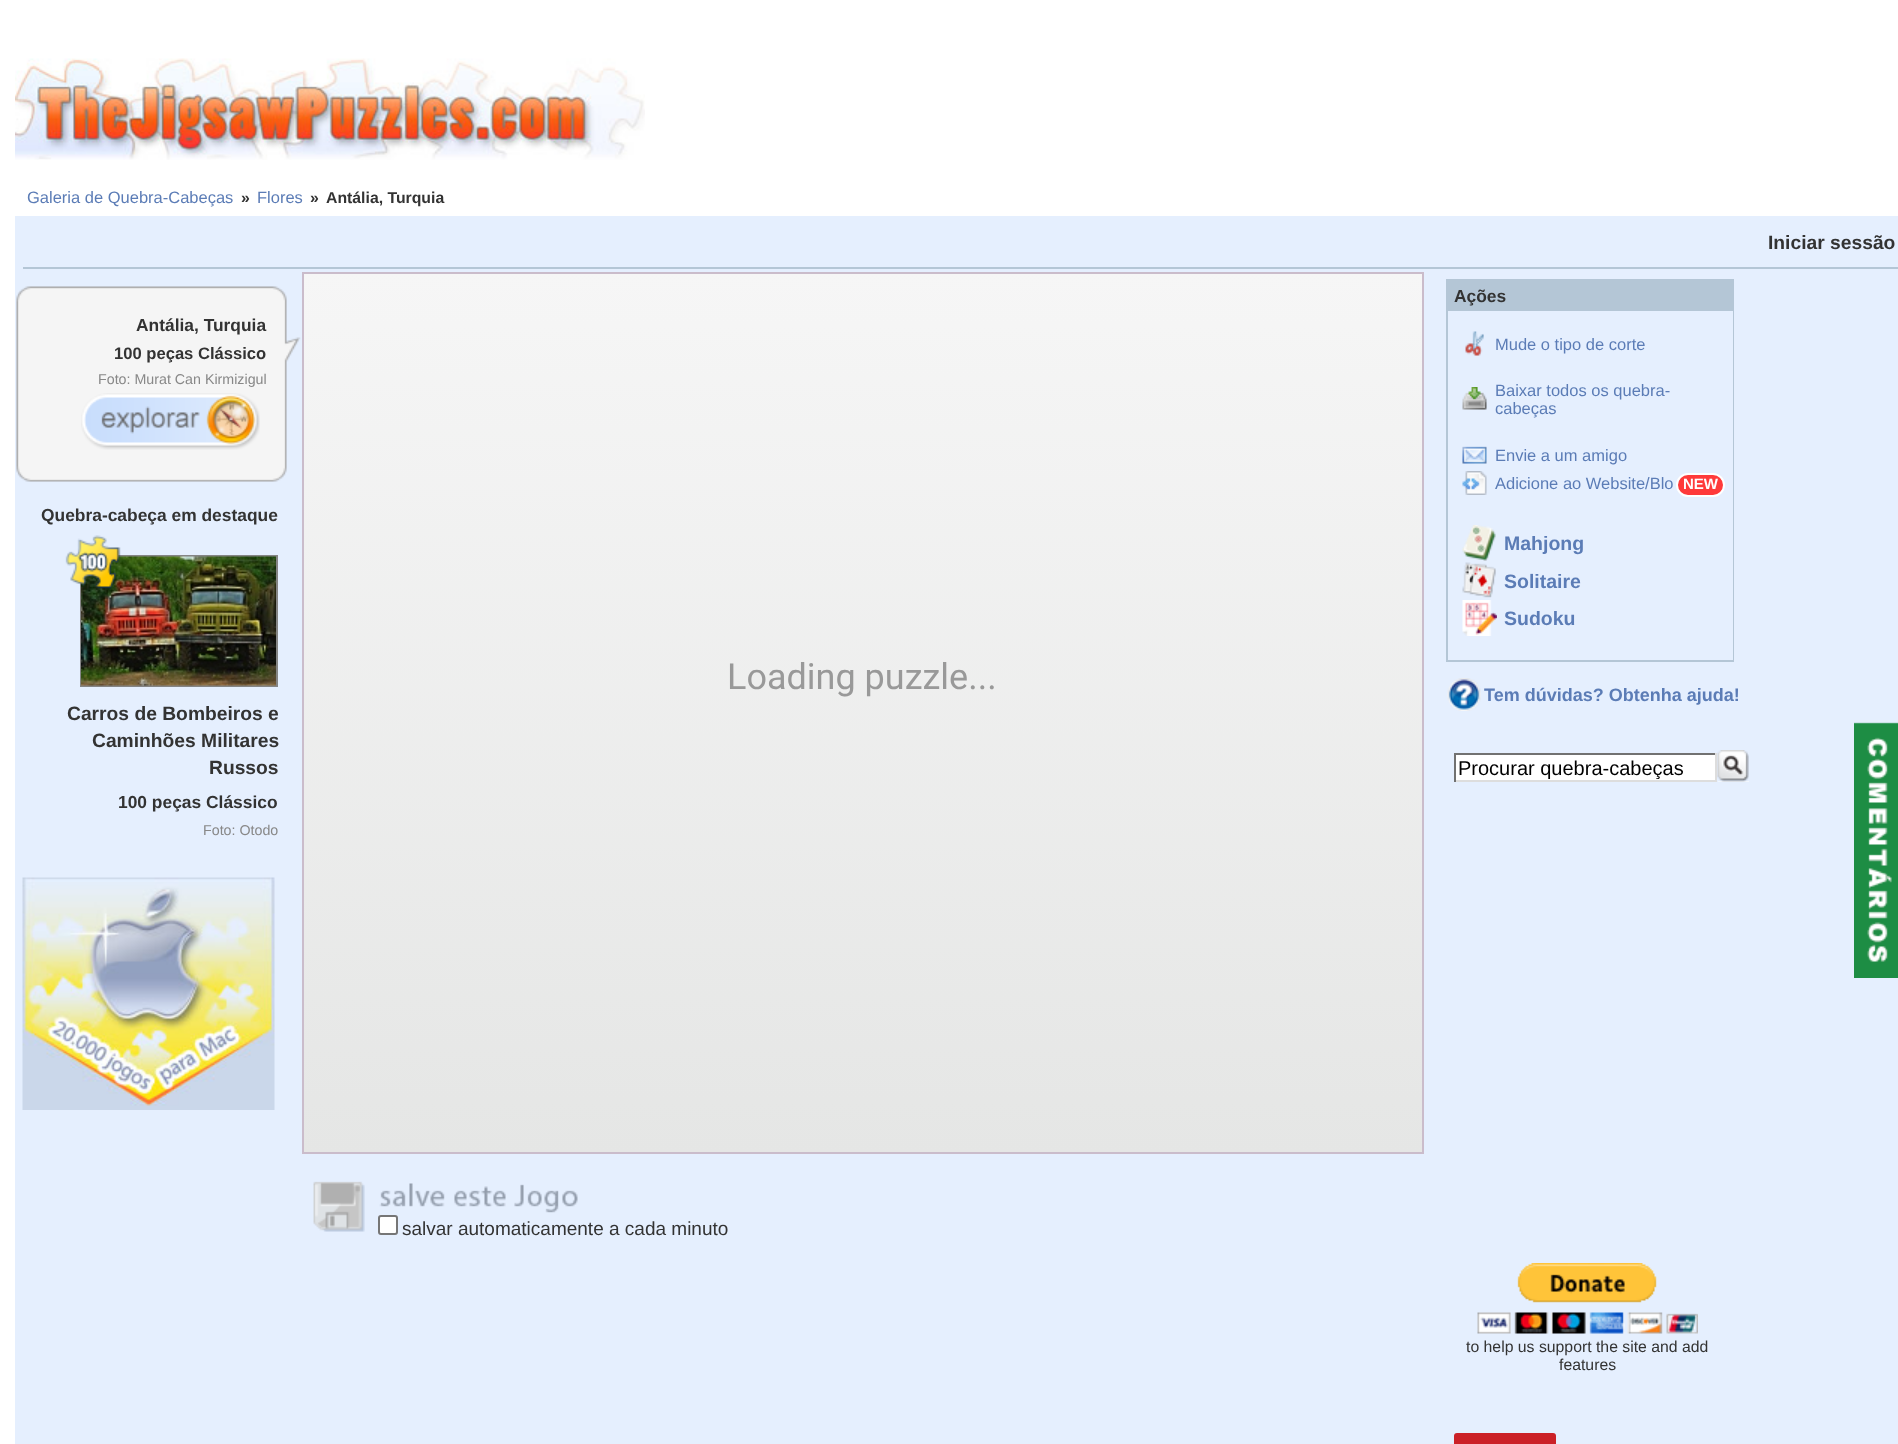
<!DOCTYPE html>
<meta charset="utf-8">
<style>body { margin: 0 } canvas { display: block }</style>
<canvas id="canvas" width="1898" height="1444"></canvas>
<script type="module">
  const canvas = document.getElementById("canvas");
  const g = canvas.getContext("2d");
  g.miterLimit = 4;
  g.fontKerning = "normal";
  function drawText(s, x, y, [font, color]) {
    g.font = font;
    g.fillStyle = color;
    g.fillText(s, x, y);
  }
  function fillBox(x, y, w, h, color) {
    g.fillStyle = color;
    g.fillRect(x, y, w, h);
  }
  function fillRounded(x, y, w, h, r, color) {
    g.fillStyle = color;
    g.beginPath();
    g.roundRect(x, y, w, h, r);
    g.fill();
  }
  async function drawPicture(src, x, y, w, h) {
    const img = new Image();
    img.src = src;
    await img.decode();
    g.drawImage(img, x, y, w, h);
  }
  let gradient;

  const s1 = ["16.5px Liberation Sans", "#5B7CB6"];
  const s2 = ["bold 15.8px Liberation Sans", "#333333"];
  const s3 = ["bold 19.25px Liberation Sans", "#333333"];
  const s4 = ["bold 17.4px Liberation Sans", "#333333"];
  const s5 = ["bold 16.6px Liberation Sans", "#333333"];
  const s6 = ["14.25px Liberation Sans", "#888888"];
  const s7 = ["bold 15px Liberation Sans", "#FFFFFF"];
  const s8 = ["bold 19.5px Liberation Sans", "#5B7CB6"];
  const s9 = ["bold 18px Liberation Sans", "#5B7CB6"];
  const s10 = ["20px Liberation Sans", "#000000"];
  const s11 = ["15.8px Liberation Sans", "#333333"];
  const s12 = ["36px Roboto", "#999999"];
  const s13 = ["19px Liberation Sans", "#333333"];

  fillBox(0, 0, 1898, 1444, "#FFFFFF");
  await drawPicture("pic1.png", 15, 58, 630, 102);
  drawText("Galeria de Quebra-Cabeças", 27, 203, s1);
  drawText("»", 241, 203, s2);
  drawText("Flores", 257, 203, s1);
  drawText("»", 310, 203, s2);
  drawText("Antália, Turquia", 326, 203, s2);
  fillBox(15, 216, 1883, 1228, "#E5EFFE");
  fillBox(23, 267, 1875, 2, "#B4C6D6");
  drawText("Iniciar sessão", 1768, 249, s3);
  await drawPicture("pic2.png", 16, 286, 285, 196);
  drawText("Antália, Turquia", 136, 331, s4);
  drawText("100 peças Clássico", 114, 359, s5);
  drawText("Foto: Murat Can Kirmizigul", 98, 384, s6);
  await drawPicture("pic3.png", 81, 393, 179, 57);
  drawText("Quebra-cabeça em destaque", 41, 521, s4);
  g.strokeStyle = "#858585";
  g.lineWidth = 2;
  g.strokeRect(81, 556, 196, 130);
  await drawPicture("pic5.png", 81, 556, 195, 130);
  await drawPicture("pic4.png", 65, 535, 56, 54);
  drawText("Carros de Bombeiros e", 67, 720, s3);
  drawText("Caminhões Militares", 92, 747, s3);
  drawText("Russos", 209, 774, s3);
  drawText("100 peças Clássico", 118, 808, s4);
  drawText("Foto: Otodo", 203, 835, s6);
  await drawPicture("pic6.png", 22, 877, 253, 233);
  fillBox(1446, 279, 288, 383, "#B4C6D6");
  drawText("Ações", 1454, 302, s4);
  fillBox(1448, 311, 285, 349, "#E5EFFE");
  await drawPicture("pic7.png", 1465, 331, 19, 25);
  drawText("Mude o tipo de corte", 1495, 350, s1);
  await drawPicture("pic8.png", 1462, 387, 25, 23);
  drawText("Baixar todos os quebra-", 1495, 396, s1);
  drawText("cabeças", 1495, 414, s1);
  await drawPicture("pic9.png", 1462, 446, 25, 18);
  drawText("Envie a um amigo", 1495, 461, s1);
  await drawPicture("pic10.png", 1462, 471, 25, 24);
  drawText("Adicione ao Website/Blo", 1495, 489, s1);
  g.fillStyle = "#FF3A3A";
  g.beginPath();
  g.roundRect(1677, 474, 47, 22, 11);
  g.fill();
  g.strokeStyle = "#FFFFFF";
  g.stroke();
  drawText("NEW", 1683, 489, s7);
  await drawPicture("pic11.png", 1462, 525, 34, 36);
  drawText("Mahjong", 1504, 550, s8);
  await drawPicture("pic12.png", 1462, 562, 34, 36);
  drawText("Solitaire", 1504, 588, s8);
  await drawPicture("pic13.png", 1462, 600, 35, 36);
  drawText("Sudoku", 1504, 625, s8);
  await drawPicture("pic14.png", 1447, 678, 34, 33);
  drawText("Tem dúvidas? Obtenha ajuda!", 1484, 701, s9);
  fillBox(1456, 755, 259, 25, "#FFFFFF");
  fillBox(1454, 753, 262, 2, "#717171");
  fillBox(1715, 753, 2, 29, "#DDDDDD");
  fillBox(1454, 780, 262, 2, "#DDDDDD");
  fillBox(1454, 753, 2, 29, "#717171");
  g.save();
  g.beginPath();
  g.rect(1458, 756, 254, 23);
  g.clip();
  drawText("Procurar quebra-cabeças", 1458, 775, s10);
  g.restore();
  fillBox(1718, 781, 31, 1, "#FFFFFF");
  await drawPicture("pic15.png", 1717, 750, 32, 32);
  await drawPicture("pic16.png", 1477, 1263, 221, 71);
  drawText("to help us support the site and add", 1466, 1352, s11);
  drawText("features", 1559, 1370, s11);
  fillRounded(1454, 1433, 102, 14, 3, "#CB2027");
  gradient = g.createLinearGradient(863, 1154, 863, 272);
  gradient.addColorStop(0, "#E5E6E5");
  gradient.addColorStop(1, "#F6F6F6");
  g.fillStyle = gradient;
  g.fillRect(304, 274, 1118, 878);
  g.strokeStyle = "#CABCCB";
  g.strokeRect(303, 273, 1120, 880);
  drawText("Loading puzzle...", 727, 689, s12);
  await drawPicture("pic17.png", 313, 1181, 265, 51);
  g.fillStyle = "#FFFFFF";
  g.beginPath();
  g.roundRect(379, 1216, 18, 18, 2);
  g.fill();
  g.strokeStyle = "#767676";
  g.stroke();
  drawText("salvar automaticamente a cada minuto", 402, 1235, s13);
  await drawPicture("pic18.png", 1854, 722, 44, 256);
</script>
